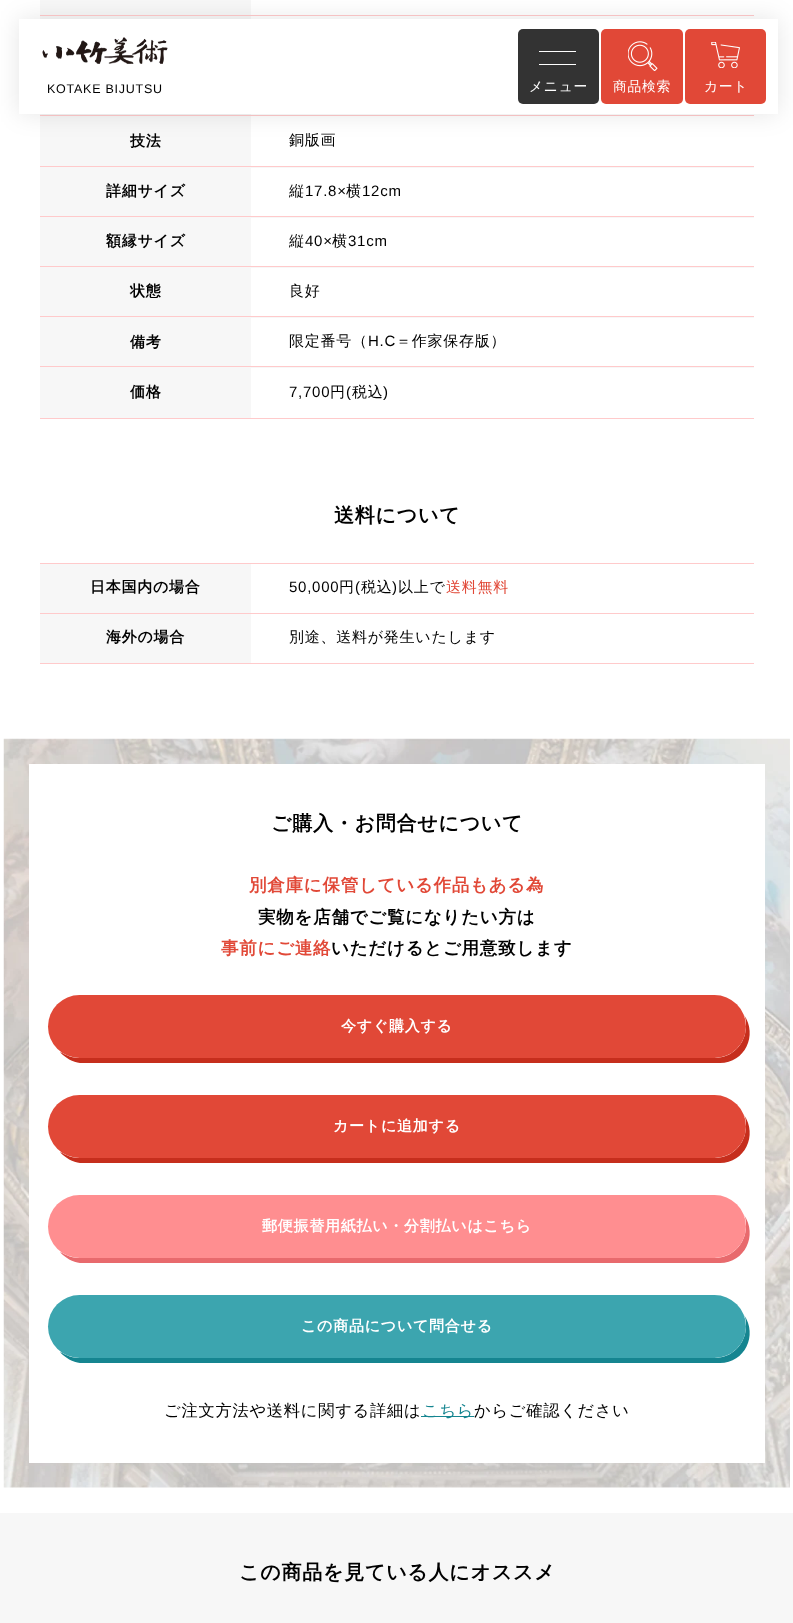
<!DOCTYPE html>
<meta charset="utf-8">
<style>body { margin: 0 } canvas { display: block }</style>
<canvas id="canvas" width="793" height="1623"></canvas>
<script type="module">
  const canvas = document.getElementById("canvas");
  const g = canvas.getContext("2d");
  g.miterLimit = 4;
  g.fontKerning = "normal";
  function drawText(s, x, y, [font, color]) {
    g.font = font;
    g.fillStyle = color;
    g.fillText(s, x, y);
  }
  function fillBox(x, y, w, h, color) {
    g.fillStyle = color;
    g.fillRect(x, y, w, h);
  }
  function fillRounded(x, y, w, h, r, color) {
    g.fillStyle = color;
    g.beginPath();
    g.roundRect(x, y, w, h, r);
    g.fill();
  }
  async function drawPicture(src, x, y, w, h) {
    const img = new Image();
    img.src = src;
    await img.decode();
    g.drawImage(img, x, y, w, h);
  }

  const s1 = ["12.5px Liberation Sans", "#000000"];
  const s2 = ["500 13.75px WenQuanYi Zen Hei", "#FFFFFF"];
  const s3 = ["bold 15px WenQuanYi Zen Hei", "#000000"];
  const s4 = ["500 15px WenQuanYi Zen Hei", "#000000"];
  const s5 = ["15px Liberation Sans", "#000000"];
  const s6 = ["bold 20px WenQuanYi Zen Hei", "#000000"];
  const s7 = ["500 15px WenQuanYi Zen Hei", "#E14837"];
  const s8 = ["bold 17.5px WenQuanYi Zen Hei", "#E14837"];
  const s9 = ["bold 17.5px WenQuanYi Zen Hei", "#000000"];
  const s10 = ["bold 15px WenQuanYi Zen Hei", "#FFFFFF"];
  const s11 = ["500 16.25px WenQuanYi Zen Hei", "#000000"];
  const s12 = ["500 16.25px WenQuanYi Zen Hei", "#158590"];

  fillBox(0, 0, 793, 1623, "#F7F7F7");
  fillBox(0, 0, 793, 1513, "#FFFFFF");
  fillBox(40, 0, 211, 15, "#F7F7F7");
  fillBox(40, 16, 211, 99, "#F7F7F7");
  fillBox(40, 15, 714, 1, "#FFCACB");
  fillBox(40, 116, 211, 50, "#F7F7F7");
  fillBox(40, 115, 714, 1, "#FFCACB");
  g.fillStyle = "rgba(0, 0, 0, 0.1)";
  g.filter = "blur(12.5px)";
  g.beginPath();
  g.rect(19, 19, 759, 95);
  g.fill();
  g.filter = "none";
  fillBox(19, 19, 759, 95, "#FFFFFF");
  await drawPicture("pic1.png", 42, 37, 126, 27);
  g.letterSpacing = "0.75px";
  drawText("KOTAKE BIJUTSU", 47, 93, s1);
  fillRounded(518, 29, 81, 75, 5, "#333333");
  fillBox(539, 51, 37, 1, "#FFFFFF");
  fillBox(539, 64, 37, 1, "#FFFFFF");
  drawText("メニュー", 529, 91, s2);
  fillRounded(601, 29, 82, 75, 5, "#E14837");
  await drawPicture("pic2.png", 628, 41, 30, 30);
  drawText("商品検索", 613, 91, s2);
  fillRounded(685, 29, 81, 75, 5, "#E14837");
  await drawPicture("pic3.png", 711, 42, 29, 26);
  drawText("カート", 704, 91, s2);
  drawText("技法", 130, 146, s3);
  drawText("銅版画", 289, 145, s4);
  fillBox(40, 167, 714, 49, "#F7F7F7");
  fillBox(40, 166, 714, 1, "#FFCACB");
  drawText("詳細サイズ", 106, 196, s3);
  fillBox(251, 168, 503, 48, "#FFFFFF");
  drawText("縦", 289, 196, s4);
  drawText("17.8×", 305, 196, s5);
  drawText("横", 346, 196, s4);
  drawText("12cm", 362, 196, s5);
  fillBox(40, 217, 714, 49, "#F7F7F7");
  fillBox(40, 216, 714, 1, "#FFCACB");
  drawText("額縁サイズ", 106, 246, s3);
  fillBox(251, 218, 503, 48, "#FFFFFF");
  drawText("縦", 289, 246, s4);
  drawText("40×", 305, 246, s5);
  drawText("横", 332, 246, s4);
  drawText("31cm", 348, 246, s5);
  fillBox(40, 267, 714, 49, "#F7F7F7");
  fillBox(40, 266, 714, 1, "#FFCACB");
  drawText("状態", 130, 296, s3);
  fillBox(251, 268, 503, 48, "#FFFFFF");
  drawText("良好", 289, 296, s4);
  fillBox(40, 317, 714, 49, "#F7F7F7");
  fillBox(40, 316, 714, 1, "#FFCACB");
  drawText("備考", 130, 347, s3);
  fillBox(251, 318, 503, 48, "#FFFFFF");
  drawText("限定番号（", 289, 346, s4);
  drawText("H.C", 368, 346, s5);
  drawText("＝作家保存版）", 396, 346, s4);
  fillBox(40, 367, 714, 51, "#F7F7F7");
  fillBox(40, 366, 714, 1, "#FFCACB");
  fillBox(40, 418, 714, 1, "#FFCACB");
  drawText("価格", 130, 397, s3);
  fillBox(251, 368, 503, 50, "#FFFFFF");
  drawText("7,700", 289, 397, s5);
  drawText("円", 330, 397, s4);
  drawText("(", 346, 397, s5);
  drawText("税込", 352, 397, s4);
  drawText(")", 383, 397, s5);
  drawText("送料について", 334, 522, s6);
  fillBox(40, 564, 211, 49, "#F7F7F7");
  fillBox(40, 563, 714, 1, "#FFCACB");
  drawText("日本国内の場合", 90, 592, s3);
  drawText("50,000", 289, 592, s5);
  drawText("円", 339, 592, s4);
  drawText("(", 355, 592, s5);
  drawText("税込", 361, 592, s4);
  drawText(")", 392, 592, s5);
  drawText("以上で", 398, 592, s4);
  drawText("送料無料", 446, 592, s7);
  fillBox(40, 614, 211, 49, "#F7F7F7");
  fillBox(40, 613, 714, 1, "#FFCACB");
  fillBox(40, 663, 714, 1, "#FFCACB");
  drawText("海外の場合", 106, 642, s3);
  drawText("別途、送料が発生いたします", 289, 642, s4);
  await drawPicture("pic4.png", 3, 738, 787, 750);
  fillBox(29, 764, 736, 699, "#FFFFFF");
  drawText("ご購入・お問合せについて", 271, 830, s6);
  drawText("別倉庫に保管している作品もある為", 249, 891, s8);
  drawText("実物を店舗でご覧になりたい方は", 258, 923, s9);
  drawText("事前にご連絡", 221, 954, s8);
  drawText("いただけるとご用意致します", 331, 954, s9);
  g.fillStyle = "#C62E1D";
  g.beginPath();
  g.moveTo(60, 1052);
  g.bezierCurveTo(65, 1058, 73, 1062, 80, 1063);
  g.lineTo(720, 1063);
  g.bezierCurveTo(745, 1063, 758, 1035, 744, 1015);
  g.bezierCurveTo(746, 1019, 746, 1022, 746, 1026);
  g.bezierCurveTo(746, 1044, 732, 1058, 715, 1058);
  g.lineTo(79, 1058);
  g.bezierCurveTo(72, 1058, 66, 1055, 60, 1052);
  g.closePath();
  g.fill();
  fillRounded(48, 995, 698, 63, 31.5, "#E14837");
  drawText("今すぐ購入する", 341, 1031, s10);
  g.fillStyle = "#C62E1D";
  g.beginPath();
  g.moveTo(60, 1152);
  g.bezierCurveTo(65, 1158, 73, 1162, 80, 1163);
  g.lineTo(720, 1163);
  g.bezierCurveTo(745, 1163, 758, 1135, 744, 1115);
  g.bezierCurveTo(746, 1119, 746, 1122, 746, 1126);
  g.bezierCurveTo(746, 1144, 732, 1158, 715, 1158);
  g.lineTo(79, 1158);
  g.bezierCurveTo(72, 1158, 66, 1155, 60, 1152);
  g.closePath();
  g.fill();
  fillRounded(48, 1095, 698, 63, 31.5, "#E14837");
  drawText("カートに追加する", 333, 1131, s10);
  g.fillStyle = "#E86A6D";
  g.beginPath();
  g.moveTo(60, 1252);
  g.bezierCurveTo(65, 1258, 73, 1262, 80, 1263);
  g.lineTo(720, 1263);
  g.bezierCurveTo(745, 1263, 758, 1235, 744, 1215);
  g.bezierCurveTo(746, 1219, 746, 1222, 746, 1226);
  g.bezierCurveTo(746, 1244, 732, 1258, 715, 1258);
  g.lineTo(79, 1258);
  g.bezierCurveTo(72, 1258, 66, 1255, 60, 1252);
  g.closePath();
  g.fill();
  fillRounded(48, 1195, 698, 63, 31.5, "#FF8E90");
  drawText("郵便振替用紙払い・分割払いはこちら", 262, 1231, s10);
  g.fillStyle = "#158590";
  g.beginPath();
  g.moveTo(60, 1352);
  g.bezierCurveTo(65, 1358, 73, 1362, 80, 1363);
  g.lineTo(720, 1363);
  g.bezierCurveTo(745, 1363, 758, 1335, 744, 1315);
  g.bezierCurveTo(746, 1319, 746, 1322, 746, 1326);
  g.bezierCurveTo(746, 1344, 732, 1358, 715, 1358);
  g.lineTo(79, 1358);
  g.bezierCurveTo(72, 1358, 66, 1355, 60, 1352);
  g.closePath();
  g.fill();
  fillRounded(48, 1295, 698, 63, 31.5, "#3CA5AF");
  drawText("この商品について問合せる", 301, 1331, s10);
  drawText("ご注文方法や送料に関する詳細は", 164, 1416, s11);
  fillBox(421, 1416, 53, 1, "#158590");
  drawText("こちら", 422, 1416, s12);
  drawText("からご確認ください", 474, 1416, s11);
  drawText("この商品を見ている人にオススメ", 239, 1579, s6);
</script>
